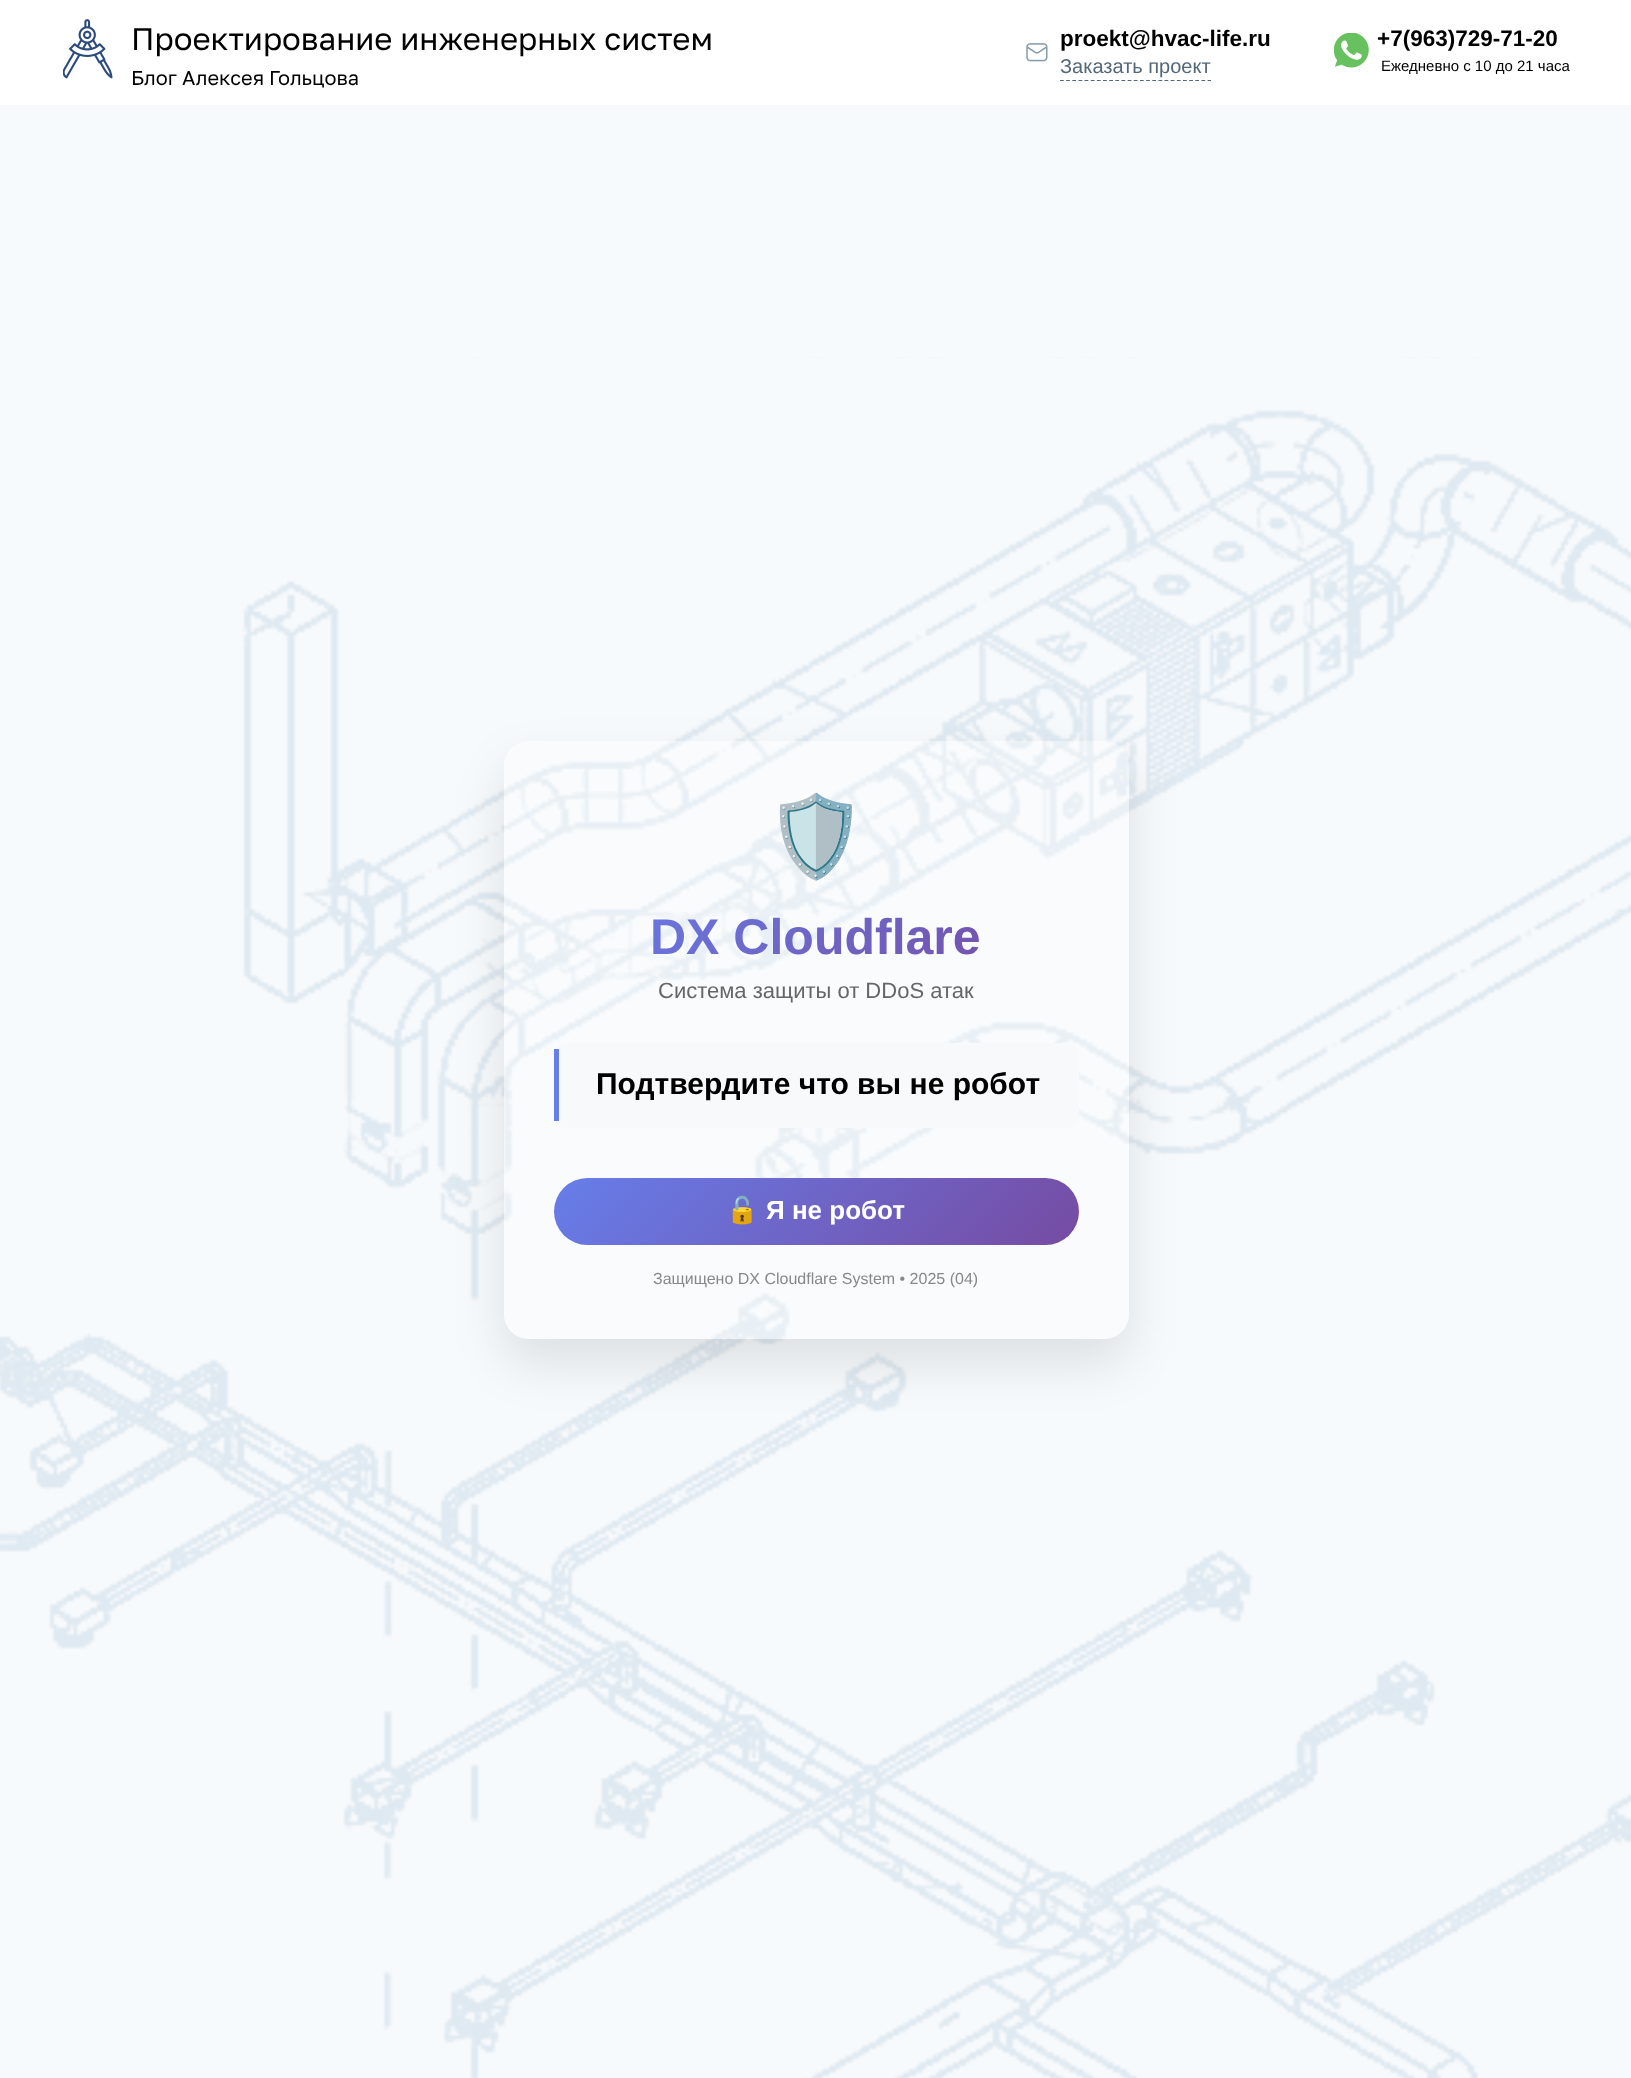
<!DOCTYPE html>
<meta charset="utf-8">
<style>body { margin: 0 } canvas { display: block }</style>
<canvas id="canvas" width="1631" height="2078"></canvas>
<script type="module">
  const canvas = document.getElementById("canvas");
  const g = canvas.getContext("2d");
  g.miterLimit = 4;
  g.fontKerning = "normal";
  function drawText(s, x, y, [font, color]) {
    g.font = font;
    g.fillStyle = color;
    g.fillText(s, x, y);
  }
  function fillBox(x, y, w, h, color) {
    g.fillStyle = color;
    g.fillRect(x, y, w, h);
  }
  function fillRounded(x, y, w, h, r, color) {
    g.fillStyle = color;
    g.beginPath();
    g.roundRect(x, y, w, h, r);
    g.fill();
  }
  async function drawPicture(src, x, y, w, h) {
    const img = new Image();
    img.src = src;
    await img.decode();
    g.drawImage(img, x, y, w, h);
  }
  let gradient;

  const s1 = ["31.25px Golos Text", "#000000"];
  const s2 = ["20px Golos Text", "#000000"];
  const s3 = ["bold 22.5px Liberation Sans", "#000000"];
  const s4 = ["20px Liberation Sans", "#526778"];
  const s5 = ["15px Liberation Sans", "#000000"];
  const s6 = ["80px Noto Color Emoji", "#667EEA"];
  const s7 = ["22px Liberation Sans", "#666666"];
  const s8 = ["bold 30px Liberation Sans", "#000000"];
  const s9 = ["bold 26px Noto Color Emoji", "#FFFFFF"];
  const s10 = ["bold 26px Liberation Sans", "#FFFFFF"];
  const s11 = ["16px Liberation Sans", "#888888"];

  fillBox(0, 0, 1631, 2078, "#F7FAFC");
  await drawPicture("pic1.png", 0, 357, 1631, 1721);
  fillBox(0, 0, 1631, 105, "#FFFFFF");
  await drawPicture("pic2.png", 63, 19, 50, 60);
  drawText("Проектирование инженерных систем", 131, 50, s1);
  drawText("Блог Алексея Гольцова", 131, 85, s2);
  await drawPicture("pic3.png", 1026, 43, 22, 19);
  drawText("proekt@hvac-life.ru", 1060, 46, s3);
  g.beginPath();
  g.moveTo(1060, 80.5);
  g.lineTo(1211, 80.5);
  g.strokeStyle = "#526778";
  g.lineWidth = 1.2;
  g.setLineDash([3.75, 2.4]);
  g.stroke();
  drawText("Заказать проект", 1060, 73, s4);
  await drawPicture("pic4.png", 1334, 33, 35, 35);
  drawText("+7(963)729-71-20", 1377, 46, s3);
  drawText("Ежедневно с 10 до 21 часа", 1381, 71, s5);
  g.save();
  g.beginPath();
  g.moveTo(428, 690);
  g.lineTo(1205, 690);
  g.lineTo(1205, 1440);
  g.lineTo(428, 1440);
  g.closePath();
  g.moveTo(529, 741);
  g.lineTo(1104, 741);
  g.bezierCurveTo(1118, 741, 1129, 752, 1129, 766);
  g.lineTo(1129, 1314);
  g.bezierCurveTo(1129, 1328, 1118, 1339, 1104, 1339);
  g.lineTo(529, 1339);
  g.bezierCurveTo(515, 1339, 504, 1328, 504, 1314);
  g.lineTo(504, 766);
  g.bezierCurveTo(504, 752, 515, 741, 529, 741);
  g.closePath();
  g.clip("evenodd");
  g.fillStyle = "rgba(0, 0, 0, 0.1)";
  g.filter = "blur(25px)";
  g.beginPath();
  g.roundRect(504, 766, 625, 598, 25);
  g.fill();
  g.filter = "none";
  g.restore();
  fillRounded(504, 741, 625, 598, 25, "rgba(255, 255, 255, 0.3)");
  drawText("🛡️", 766, 864, s6);
  g.font = "bold 50px Liberation Sans";
  gradient = g.createLinearGradient(670, 792, 961, 1083);
  gradient.addColorStop(0, "#667EEA");
  gradient.addColorStop(1, "#764BA2");
  g.fillStyle = gradient;
  g.fillText("DX Cloudflare", 650, 954);
  drawText("Система защиты от DDoS атак", 658, 998, s7);
  fillRounded(554, 1043, 525, 85, 13, "#F8F9FA");
  fillBox(554, 1049, 5, 72, "#667EEA");
  drawText("Подтвердите что вы не робот", 596, 1094, s8);
  gradient = g.createLinearGradient(668, 1063, 964, 1359);
  gradient.addColorStop(0, "#667EEA");
  gradient.addColorStop(1, "#764BA2");
  g.fillStyle = gradient;
  g.beginPath();
  g.roundRect(554, 1178, 525, 67, 33.5);
  g.fill();
  drawText("🔓", 726, 1219, s9);
  drawText("Я не робот", 766, 1219, s10);
  drawText("Защищено DX Cloudflare System • 2025 (04)", 653, 1284, s11);
</script>
